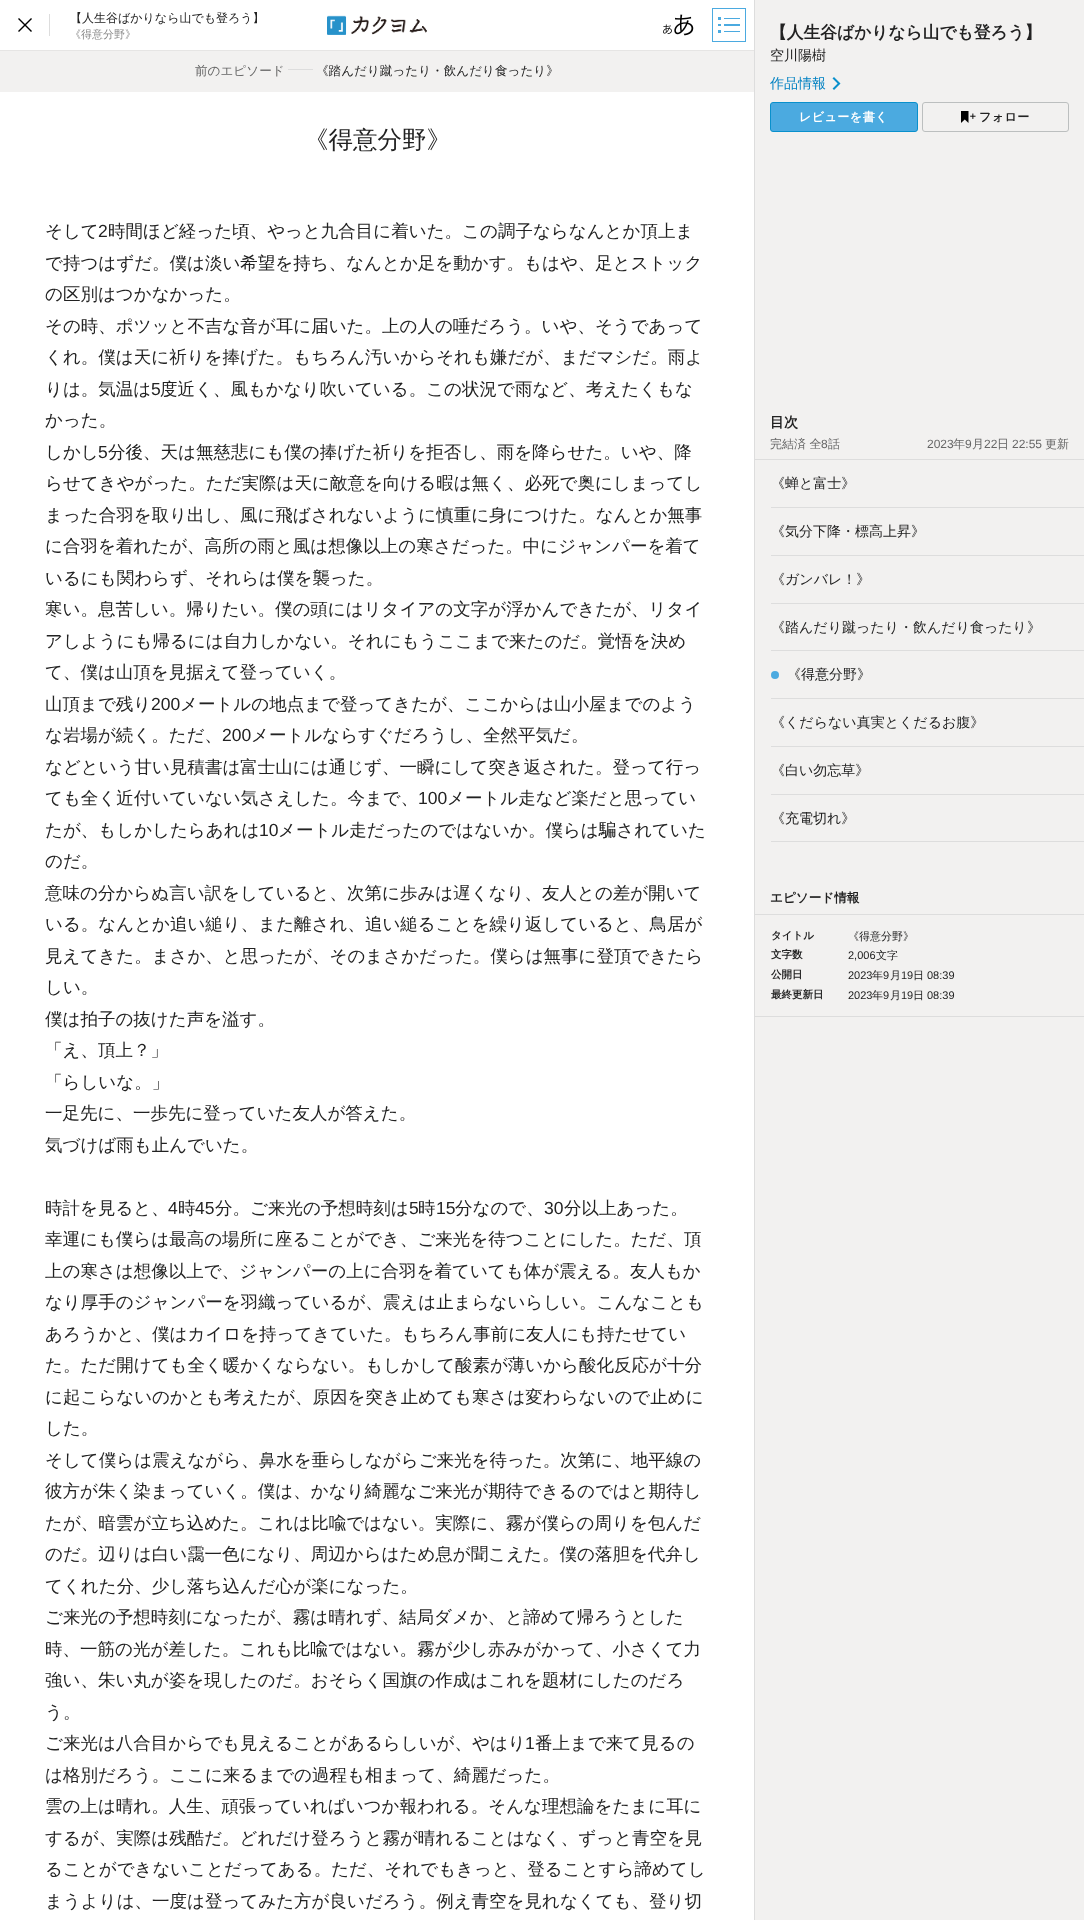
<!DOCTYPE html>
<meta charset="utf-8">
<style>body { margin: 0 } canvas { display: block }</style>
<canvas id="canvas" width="1084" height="1920"></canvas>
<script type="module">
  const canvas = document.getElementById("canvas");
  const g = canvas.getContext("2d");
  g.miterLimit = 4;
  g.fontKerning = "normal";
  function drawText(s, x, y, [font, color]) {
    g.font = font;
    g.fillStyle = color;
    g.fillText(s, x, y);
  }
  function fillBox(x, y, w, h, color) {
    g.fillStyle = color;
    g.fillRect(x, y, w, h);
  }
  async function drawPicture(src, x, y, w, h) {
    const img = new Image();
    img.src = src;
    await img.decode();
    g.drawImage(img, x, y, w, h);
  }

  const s1 = ["500 12px WenQuanYi Zen Hei", "#222222"];
  const s2 = ["500 11px WenQuanYi Zen Hei", "#888888"];
  const s3 = ["bold 16.75px WenQuanYi Zen Hei", "#222222"];
  const s4 = ["500 14px WenQuanYi Zen Hei", "#222222"];
  const s5 = ["500 14px WenQuanYi Zen Hei", "#0081C2"];
  const s6 = ["bold 12px WenQuanYi Zen Hei", "#FFFFFF"];
  const s7 = ["bold 12px WenQuanYi Zen Hei", "#222222"];
  const s8 = ["bold 14px WenQuanYi Zen Hei", "#222222"];
  const s9 = ["500 12px WenQuanYi Zen Hei", "#666666"];
  const s10 = ["12px Liberation Sans", "#666666"];
  const s11 = ["bold 12.6px WenQuanYi Zen Hei", "#222222"];
  const s12 = ["bold 10.5px WenQuanYi Zen Hei", "#222222"];
  const s13 = ["500 11px WenQuanYi Zen Hei", "#222222"];
  const s14 = ["11px Liberation Sans", "#222222"];
  const s15 = ["500 12.6px WenQuanYi Zen Hei", "#666666"];
  const s16 = ["500 12.6px WenQuanYi Zen Hei", "#222222"];
  const s17 = ["500 24.5px WenQuanYi Zen Hei", "#222222"];
  const s18 = ["500 17.5px WenQuanYi Zen Hei", "#222222"];
  const s19 = ["17.5px Liberation Sans", "#222222"];

  fillBox(0, 0, 1084, 1920, "#F2F1F0");
  fillBox(0, 50, 754, 1, "#E6E5E4");
  fillBox(0, 0, 754, 50, "#FFFFFF");
  await drawPicture("pic1.png", 18, 18, 14, 14);
  fillBox(49, 14, 1, 22, "#DDDDDD");
  drawText("【人生谷ばかりなら山でも登ろう】", 70, 22, s1);
  drawText("《得意分野》", 70, 38, s2);
  await drawPicture("pic2.png", 327, 15, 100, 20);
  await drawPicture("pic3.png", 663, 14, 31, 22);
  g.strokeStyle = "#4BAAE0";
  g.strokeRect(712.5, 8.5, 33, 33);
  await drawPicture("pic4.png", 718, 17, 22, 16);
  fillBox(754, 0, 1, 1920, "#DDDDDD");
  drawText("【人生谷ばかりなら山でも登ろう】", 770, 38, s3);
  drawText("空川陽樹", 770, 60, s4);
  drawText("作品情報", 770, 88, s5);
  await drawPicture("pic5.png", 832, 77, 9, 13);
  g.fillStyle = "#4BAAE0";
  g.beginPath();
  g.roundRect(770.5, 102.5, 147, 29, 2.5);
  g.fill();
  g.strokeStyle = "#0990CC";
  g.stroke();
  g.letterSpacing = "0.5px";
  drawText("レビューを書く", 799, 121, s6);
  g.beginPath();
  g.roundRect(922.5, 102.5, 146, 29, 2.5);
  g.strokeStyle = "#BCBFBF";
  g.stroke();
  await drawPicture("pic6.png", 961, 111, 15, 12);
  drawText("フォロー", 979, 121, s7);
  fillBox(755, 459, 329, 1, "#DDDDDD");
  g.letterSpacing = "0px";
  drawText("目次", 770, 427, s8);
  drawText("完結済 全", 770, 448, s9);
  drawText("8", 821, 448, s10);
  drawText("話", 828, 448, s9);
  drawText("2023", 927, 448, s10);
  drawText("年", 953, 448, s9);
  drawText("9", 965, 448, s10);
  drawText("月", 972, 448, s9);
  drawText("22", 984, 448, s10);
  drawText("日", 997, 448, s9);
  drawText("22:55", 1012, 448, s10);
  drawText("更新", 1045, 448, s9);
  fillBox(771, 507, 313, 1, "#DDDDDD");
  drawText("《蝉と富士》", 771, 488, s4);
  fillBox(771, 555, 313, 1, "#DDDDDD");
  drawText("《気分下降・標高上昇》", 771, 536, s4);
  fillBox(771, 603, 313, 1, "#DDDDDD");
  drawText("《ガンバレ！》", 771, 584, s4);
  fillBox(771, 650, 313, 1, "#DDDDDD");
  drawText("《踏んだり蹴ったり・飲んだり食ったり》", 771, 632, s4);
  fillBox(771, 698, 313, 1, "#DDDDDD");
  g.fillStyle = "#4BAAE0";
  g.beginPath();
  g.arc(775, 675, 4, 0, Math.PI * 2);
  g.fill();
  drawText("《得意分野》", 787, 679, s4);
  fillBox(771, 746, 313, 1, "#DDDDDD");
  drawText("《くだらない真実とくだるお腹》", 771, 727, s4);
  fillBox(771, 794, 313, 1, "#DDDDDD");
  drawText("《白い勿忘草》", 771, 775, s4);
  fillBox(771, 841, 313, 1, "#DDDDDD");
  drawText("《充電切れ》", 771, 823, s4);
  fillBox(755, 914, 329, 1, "#DDDDDD");
  drawText("エピソード情報", 770, 902, s11);
  fillBox(755, 1016, 329, 1, "#DDDDDD");
  drawText("タイトル", 771, 939, s12);
  drawText("《得意分野》", 848, 940, s13);
  drawText("文字数", 771, 958, s12);
  drawText("2,006", 848, 959, s14);
  drawText("文字", 876, 959, s13);
  drawText("公開日", 771, 978, s12);
  drawText("2023", 848, 979, s14);
  drawText("年", 872, 979, s13);
  drawText("9", 883, 979, s14);
  drawText("月", 890, 979, s13);
  drawText("19", 901, 979, s14);
  drawText("日", 913, 979, s13);
  drawText("08:39", 927, 979, s14);
  drawText("最終更新日", 771, 998, s12);
  drawText("2023", 848, 999, s14);
  drawText("年", 872, 999, s13);
  drawText("9", 883, 999, s14);
  drawText("月", 890, 999, s13);
  drawText("19", 901, 999, s14);
  drawText("日", 913, 999, s13);
  drawText("08:39", 927, 999, s14);
  drawText("前のエピソード", 195, 75, s15);
  fillBox(288, 69, 25, 1, "#DDDDDD");
  drawText("《踏んだり蹴ったり・飲んだり食ったり》", 316, 75, s16);
  fillBox(0, 92, 754, 1828, "#FFFFFF");
  drawText("《得意分野》", 304, 148, s17);
  drawText("そして", 45, 237, s18);
  drawText("2", 98, 237, s19);
  drawText("時間ほど経った頃、やっと九合目に着いた。この調子ならなんとか頂上ま", 108, 237, s18);
  drawText("で持つはずだ。僕は淡い希望を持ち、なんとか足を動かす。もはや、足とストック", 45, 269, s18);
  drawText("の区別はつかなかった。", 45, 300, s18);
  drawText("その時、ポツッと不吉な音が耳に届いた。上の人の唾だろう。いや、そうであって", 45, 332, s18);
  drawText("くれ。僕は天に祈りを捧げた。もちろん汚いからそれも嫌だが、まだマシだ。雨よ", 45, 363, s18);
  drawText("りは。気温は", 45, 395, s18);
  drawText("5", 151, 395, s19);
  drawText("度近く、風もかなり吹いている。この状況で雨など、考えたくもな", 160, 395, s18);
  drawText("かった。", 45, 426, s18);
  drawText("しかし", 45, 458, s18);
  drawText("5", 98, 458, s19);
  drawText("分後、天は無慈悲にも僕の捧げた祈りを拒否し、雨を降らせた。いや、降", 108, 458, s18);
  drawText("らせてきやがった。ただ実際は天に敵意を向ける暇は無く、必死で奥にしまってし", 45, 489, s18);
  drawText("まった合羽を取り出し、風に飛ばされないように慎重に身につけた。なんとか無事", 45, 521, s18);
  drawText("に合羽を着れたが、高所の雨と風は想像以上の寒さだった。中にジャンパーを着て", 45, 552, s18);
  drawText("いるにも関わらず、それらは僕を襲った。", 45, 584, s18);
  drawText("寒い。息苦しい。帰りたい。僕の頭にはリタイアの文字が浮かんできたが、リタイ", 45, 615, s18);
  drawText("アしようにも帰るには自力しかない。それにもうここまで来たのだ。覚悟を決め", 45, 647, s18);
  drawText("て、僕は山頂を見据えて登っていく。", 45, 678, s18);
  drawText("山頂まで残り", 45, 710, s18);
  drawText("200", 151, 710, s19);
  drawText("メートルの地点まで登ってきたが、ここからは山小屋までのよう", 180, 710, s18);
  drawText("な岩場が続く。ただ、", 45, 741, s18);
  drawText("200", 222, 741, s19);
  drawText("メートルならすぐだろうし、全然平気だ。", 251, 741, s18);
  drawText("などという甘い見積書は富士山には通じず、一瞬にして突き返された。登って行っ", 45, 773, s18);
  drawText("ても全く近付いていない気さえした。今まで、", 45, 804, s18);
  drawText("100", 418, 804, s19);
  drawText("メートル走など楽だと思ってい", 447, 804, s18);
  drawText("たが、もしかしたらあれは", 45, 836, s18);
  drawText("10", 259, 836, s19);
  drawText("メートル走だったのではないか。僕らは騙されていた", 278, 836, s18);
  drawText("のだ。", 45, 867, s18);
  drawText("意味の分からぬ言い訳をしていると、次第に歩みは遅くなり、友人との差が開いて", 45, 899, s18);
  drawText("いる。なんとか追い縋り、また離され、追い縋ることを繰り返していると、鳥居が", 45, 930, s18);
  drawText("見えてきた。まさか、と思ったが、そのまさかだった。僕らは無事に登頂できたら", 45, 962, s18);
  drawText("しい。", 45, 993, s18);
  drawText("僕は拍子の抜けた声を溢す。", 45, 1025, s18);
  drawText("「え、頂上？」", 45, 1056, s18);
  drawText("「らしいな。」", 45, 1088, s18);
  drawText("一足先に、一歩先に登っていた友人が答えた。", 45, 1119, s18);
  drawText("気づけば雨も止んでいた。", 45, 1151, s18);
  drawText("時計を見ると、", 45, 1214, s18);
  drawText("4", 168, 1214, s19);
  drawText("時", 178, 1214, s18);
  drawText("45", 195, 1214, s19);
  drawText("分。ご来光の予想時刻は", 215, 1214, s18);
  drawText("5", 409, 1214, s19);
  drawText("時", 418, 1214, s18);
  drawText("15", 436, 1214, s19);
  drawText("分なので、", 455, 1214, s18);
  drawText("30", 544, 1214, s19);
  drawText("分以上あった。", 564, 1214, s18);
  drawText("幸運にも僕らは最高の場所に座ることができ、ご来光を待つことにした。ただ、頂", 45, 1245, s18);
  drawText("上の寒さは想像以上で、ジャンパーの上に合羽を着ていても体が震える。友人もか", 45, 1277, s18);
  drawText("なり厚手のジャンパーを羽織っているが、震えは止まらないらしい。こんなことも", 45, 1308, s18);
  drawText("あろうかと、僕はカイロを持ってきていた。もちろん事前に友人にも持たせてい", 45, 1340, s18);
  drawText("た。ただ開けても全く暖かくならない。もしかして酸素が薄いから酸化反応が十分", 45, 1371, s18);
  drawText("に起こらないのかとも考えたが、原因を突き止めても寒さは変わらないので止めに", 45, 1403, s18);
  drawText("した。", 45, 1434, s18);
  drawText("そして僕らは震えながら、鼻水を垂らしながらご来光を待った。次第に、地平線の", 45, 1466, s18);
  drawText("彼方が朱く染まっていく。僕は、かなり綺麗なご来光が期待できるのではと期待し", 45, 1497, s18);
  drawText("たが、暗雲が立ち込めた。これは比喩ではない。実際に、霧が僕らの周りを包んだ", 45, 1529, s18);
  drawText("のだ。辺りは白い靄一色になり、周辺からはため息が聞こえた。僕の落胆を代弁し", 45, 1560, s18);
  drawText("てくれた分、少し落ち込んだ心が楽になった。", 45, 1592, s18);
  drawText("ご来光の予想時刻になったが、霧は晴れず、結局ダメか、と諦めて帰ろうとした", 45, 1623, s18);
  drawText("時、一筋の光が差した。これも比喩ではない。霧が少し赤みがかって、小さくて力", 45, 1655, s18);
  drawText("強い、朱い丸が姿を現したのだ。おそらく国旗の作成はこれを題材にしたのだろ", 45, 1686, s18);
  drawText("う。", 45, 1718, s18);
  drawText("ご来光は八合目からでも見えることがあるらしいが、やはり", 45, 1749, s18);
  drawText("1", 525, 1749, s19);
  drawText("番上まで来て見るの", 535, 1749, s18);
  drawText("は格別だろう。ここに来るまでの過程も相まって、綺麗だった。", 45, 1781, s18);
  drawText("雲の上は晴れ。人生、頑張っていればいつか報われる。そんな理想論をたまに耳に", 45, 1812, s18);
  drawText("するが、実際は残酷だ。どれだけ登ろうと霧が晴れることはなく、ずっと青空を見", 45, 1844, s18);
  drawText("ることができないことだってある。ただ、それでもきっと、登ることすら諦めてし", 45, 1875, s18);
  drawText("まうよりは、一度は登ってみた方が良いだろう。例え青空を見れなくても、登り切", 45, 1907, s18);
</script>
